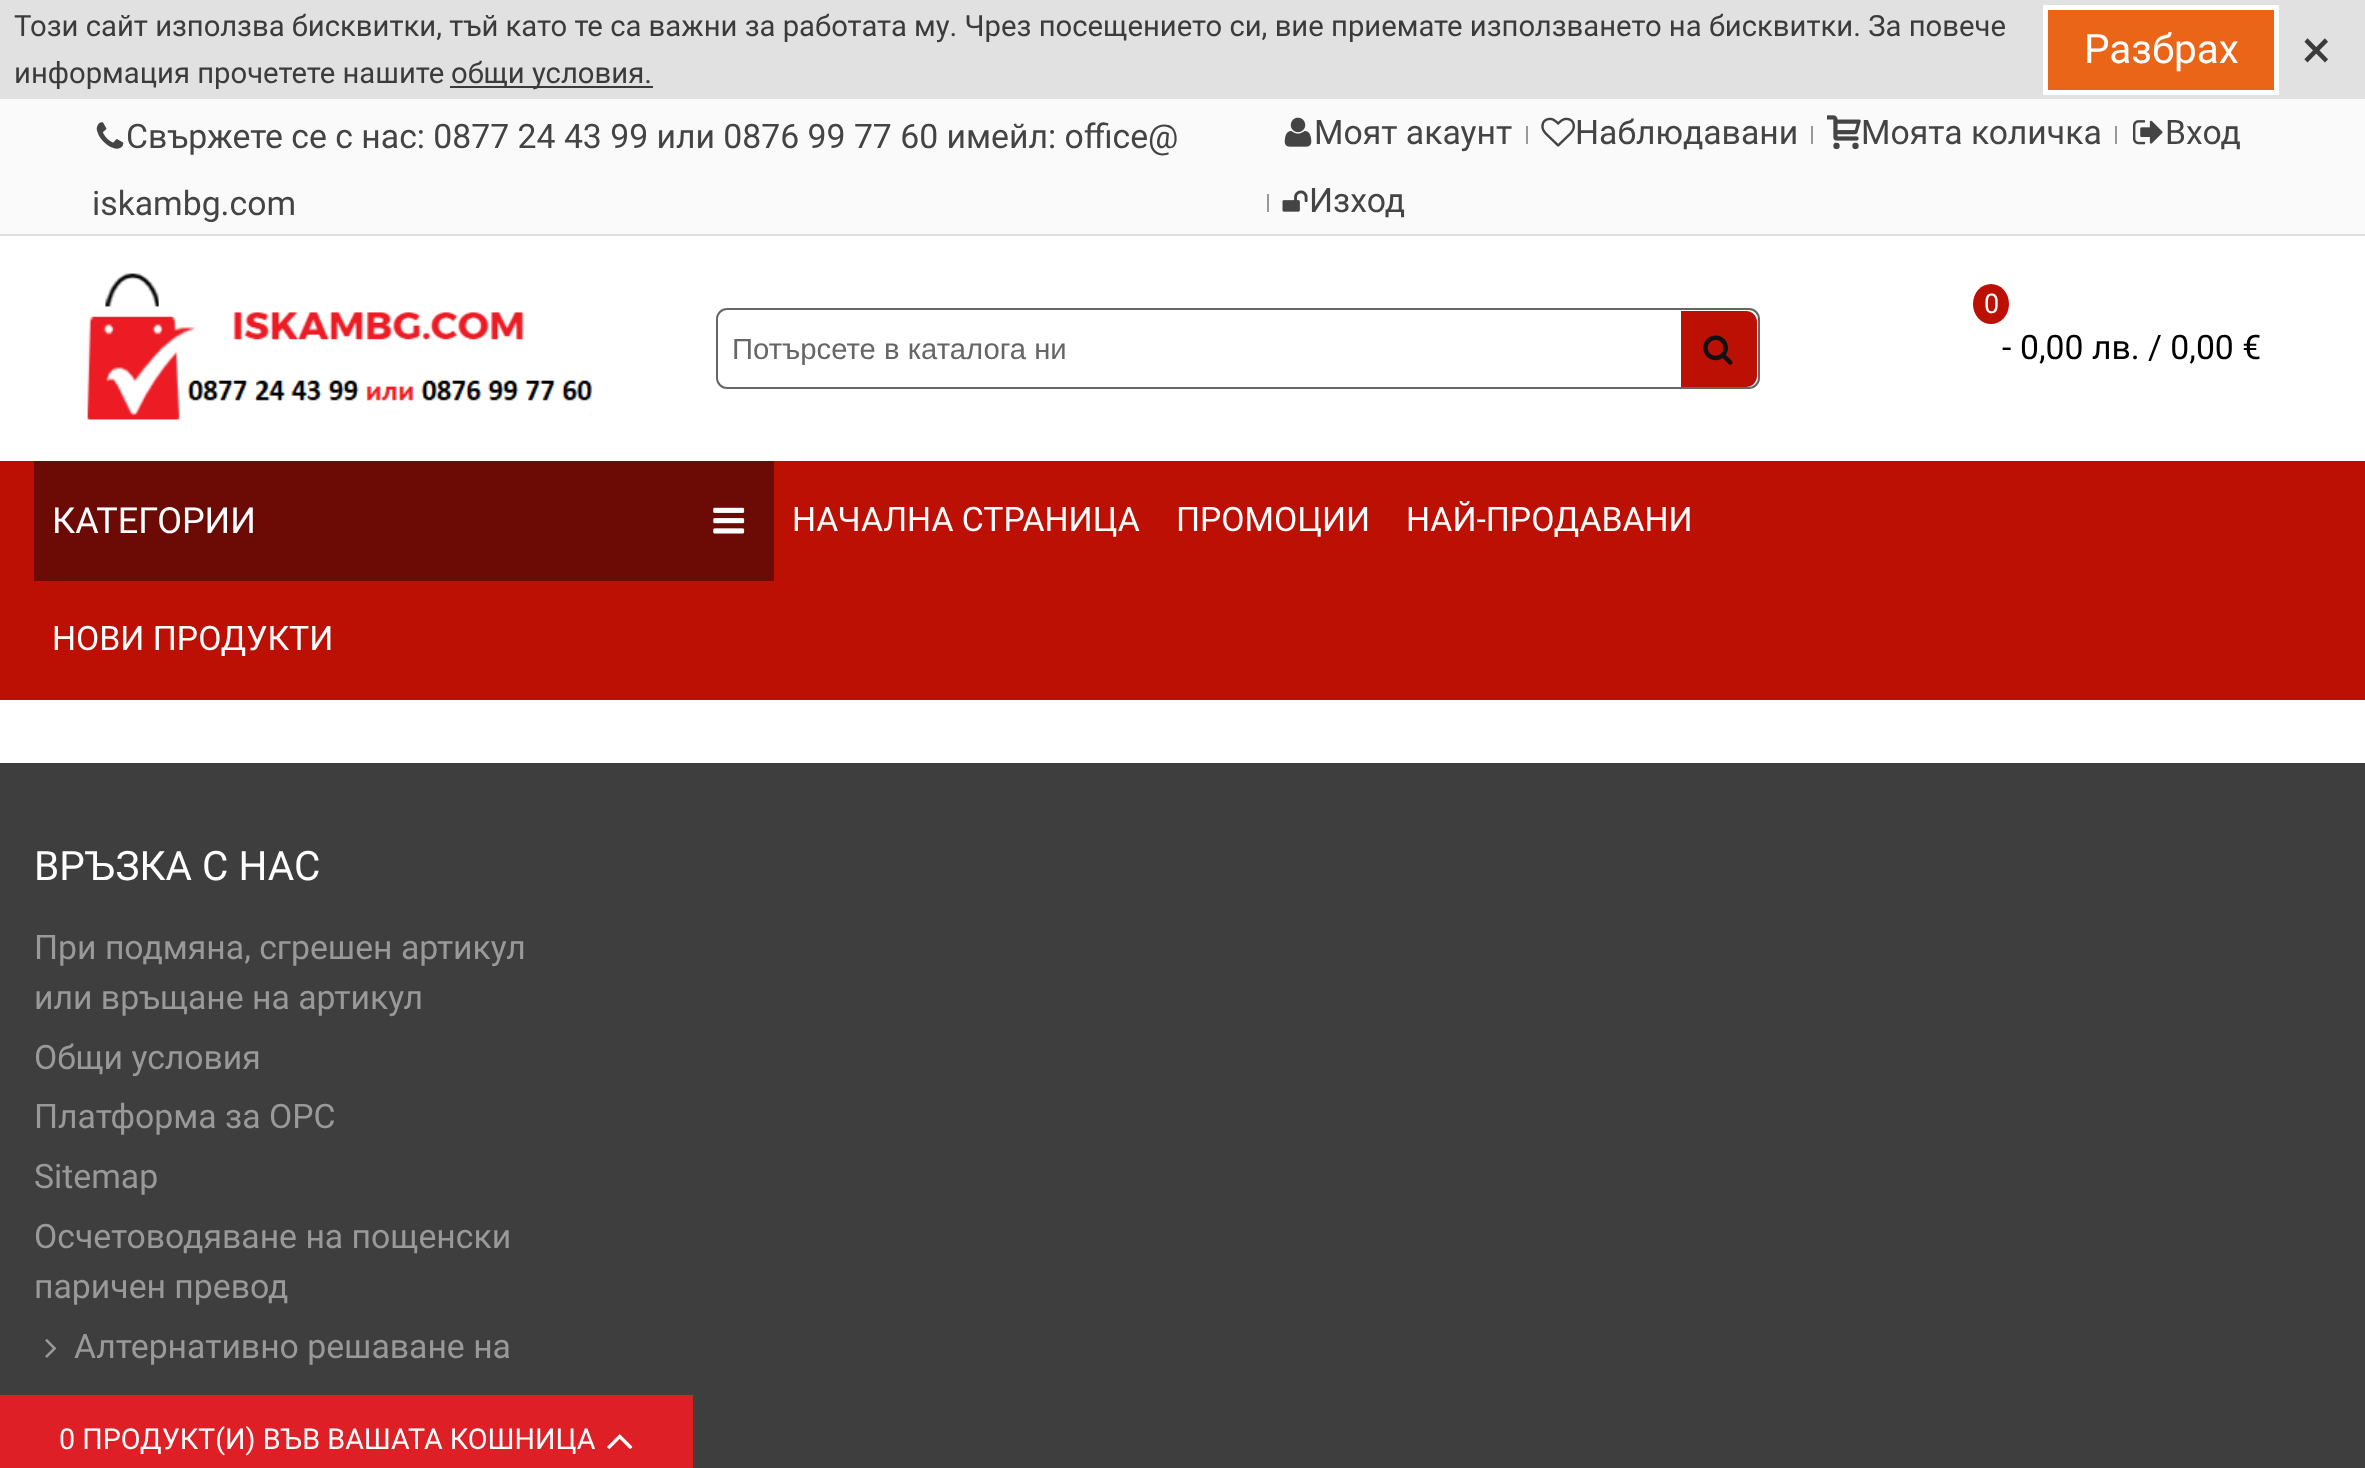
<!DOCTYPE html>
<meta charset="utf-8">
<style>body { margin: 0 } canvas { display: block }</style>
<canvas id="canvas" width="2365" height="1468"></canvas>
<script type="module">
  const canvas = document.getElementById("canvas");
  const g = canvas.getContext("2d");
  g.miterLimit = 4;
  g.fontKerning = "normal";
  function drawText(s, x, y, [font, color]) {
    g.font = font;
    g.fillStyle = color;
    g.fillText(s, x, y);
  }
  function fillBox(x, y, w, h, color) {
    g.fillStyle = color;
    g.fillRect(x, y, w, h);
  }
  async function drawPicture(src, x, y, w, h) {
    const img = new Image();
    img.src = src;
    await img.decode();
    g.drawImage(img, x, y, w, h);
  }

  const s1 = ["29.25px Roboto", "#3B3B3B"];
  const s2 = ["40.5px Roboto", "#FFFFFF"];
  const s3 = ["54px Roboto", "#3B3B3B"];
  const s4 = ["33.75px Roboto", "#444444"];
  const s5 = ["29.25px Liberation Sans", "#666666"];
  const s6 = ["27px Roboto", "#FFFFFF"];
  const s7 = ["33.75px Roboto", "#000000"];
  const s8 = ["36px Roboto", "#FFFFFF"];
  const s9 = ["33.75px Roboto", "#FFFFFF"];
  const s10 = ["33.75px Roboto", "#999999"];
  const s11 = ["28.7px Roboto", "#FFFFFF"];

  fillBox(0, 0, 2365, 1468, "#FFFFFF");
  fillBox(0, 0, 2365, 99, "#E1E1E1");
  drawText("Този сайт използва бисквитки, тъй като те са важни за работата му. Чрез посещението си, вие приемате използването на бисквитки. За повече", 14, 36, s1);
  drawText("информация прочетете нашите", 14, 83, s1);
  fillBox(450, 86, 203, 2, "#3B3B3B");
  drawText("общи условия.", 451, 83, s1);
  g.fillStyle = "#EB6519";
  g.beginPath();
  g.rect(2045.5, 7.5, 231, 85);
  g.fill();
  g.strokeStyle = "#FFFFFF";
  g.lineWidth = 5;
  g.stroke();
  drawText("Разбрах", 2084, 63, s2);
  drawText("×", 2302, 68, s3);
  fillBox(0, 99, 2365, 135, "#FAFAFA");
  fillBox(0, 234, 2365, 2, "#DFDFDF");
  await drawPicture("pic1.png", 96, 122, 28, 27);
  drawText("Свържете се с нас: 0877 24 43 99 или 0876 99 77 60 имейл: office@", 126, 148, s4);
  drawText("iskambg.com", 92, 215, s4);
  await drawPicture("pic2.png", 1284, 117, 28, 30);
  drawText("Моят акаунт", 1314, 144, s4);
  fillBox(1526, 126, 2, 18, "#999999");
  await drawPicture("pic3.png", 1541, 117, 34, 30);
  drawText("Наблюдавани", 1575, 144, s4);
  fillBox(1811, 126, 2, 18, "#999999");
  await drawPicture("pic4.png", 1827, 115, 34, 35);
  drawText("Моята количка", 1861, 144, s4);
  fillBox(2115, 126, 2, 18, "#999999");
  await drawPicture("pic5.png", 2133, 120, 30, 25);
  drawText("Вход", 2165, 144, s4);
  fillBox(1267, 194, 2, 18, "#999999");
  await drawPicture("pic6.png", 1282, 190, 26, 22);
  drawText("Изход", 1309, 212, s4);
  await drawPicture("pic7.png", 87, 273, 506, 147);
  g.beginPath();
  g.roundRect(717, 309, 1042, 79, 10);
  g.strokeStyle = "#666666";
  g.lineWidth = 2;
  g.stroke();
  g.fillStyle = "#FFFFFF";
  g.beginPath();
  g.roundRect(718, 311, 965, 76, [11, 0, 0, 11]);
  g.fill();
  drawText("Потърсете в каталога ни", 732, 359, s5);
  g.fillStyle = "#BD1004";
  g.beginPath();
  g.roundRect(1681, 311, 76, 76, [0, 11, 11, 0]);
  g.fill();
  await drawPicture("pic8.png", 1703, 335, 30, 30);
  g.beginPath();
  g.ellipse(1991, 304, 18, 20, 0, 0, Math.PI * 2);
  g.fill();
  drawText("0", 1984, 313, s6);
  drawText("-", 2002, 359, s7);
  drawText("0,00 лв. / 0,00 €", 2020, 359, s7);
  fillBox(0, 461, 2365, 239, "#BD1004");
  fillBox(34, 461, 740, 120, "#6C0B05");
  drawText("КАТЕГОРИИ", 52, 533, s8);
  await drawPicture("pic9.png", 713, 507, 32, 27);
  drawText("НАЧАЛНА СТРАНИЦА", 792, 531, s9);
  drawText("ПРОМОЦИИ", 1176, 531, s9);
  drawText("НАЙ-ПРОДАВАНИ", 1406, 531, s9);
  drawText("НОВИ ПРОДУКТИ", 52, 650, s9);
  fillBox(0, 763, 2365, 705, "#3E3E3E");
  drawText("ВРЪЗКА С НАС", 34, 880, s2);
  drawText("При подмяна, сгрешен артикул", 34, 959, s10);
  drawText("или връщане на артикул", 34, 1009, s10);
  drawText("Общи условия", 34, 1069, s10);
  drawText("Платформа за OPC", 34, 1128, s10);
  drawText("Sitemap", 34, 1188, s10);
  drawText("Осчетоводяване на пощенски", 34, 1248, s10);
  drawText("паричен превод", 34, 1298, s10);
  await drawPicture("pic10.png", 45, 1339, 12, 19);
  drawText("Алтернативно решаване на", 74, 1358, s10);
  fillBox(0, 1395, 693, 73, "#DF1F26");
  drawText("0 ПРОДУКТ(И) ВЪВ ВАШАТА КОШНИЦА", 59, 1449, s11);
  await drawPicture("pic11.png", 607, 1434, 26, 15);
</script>
